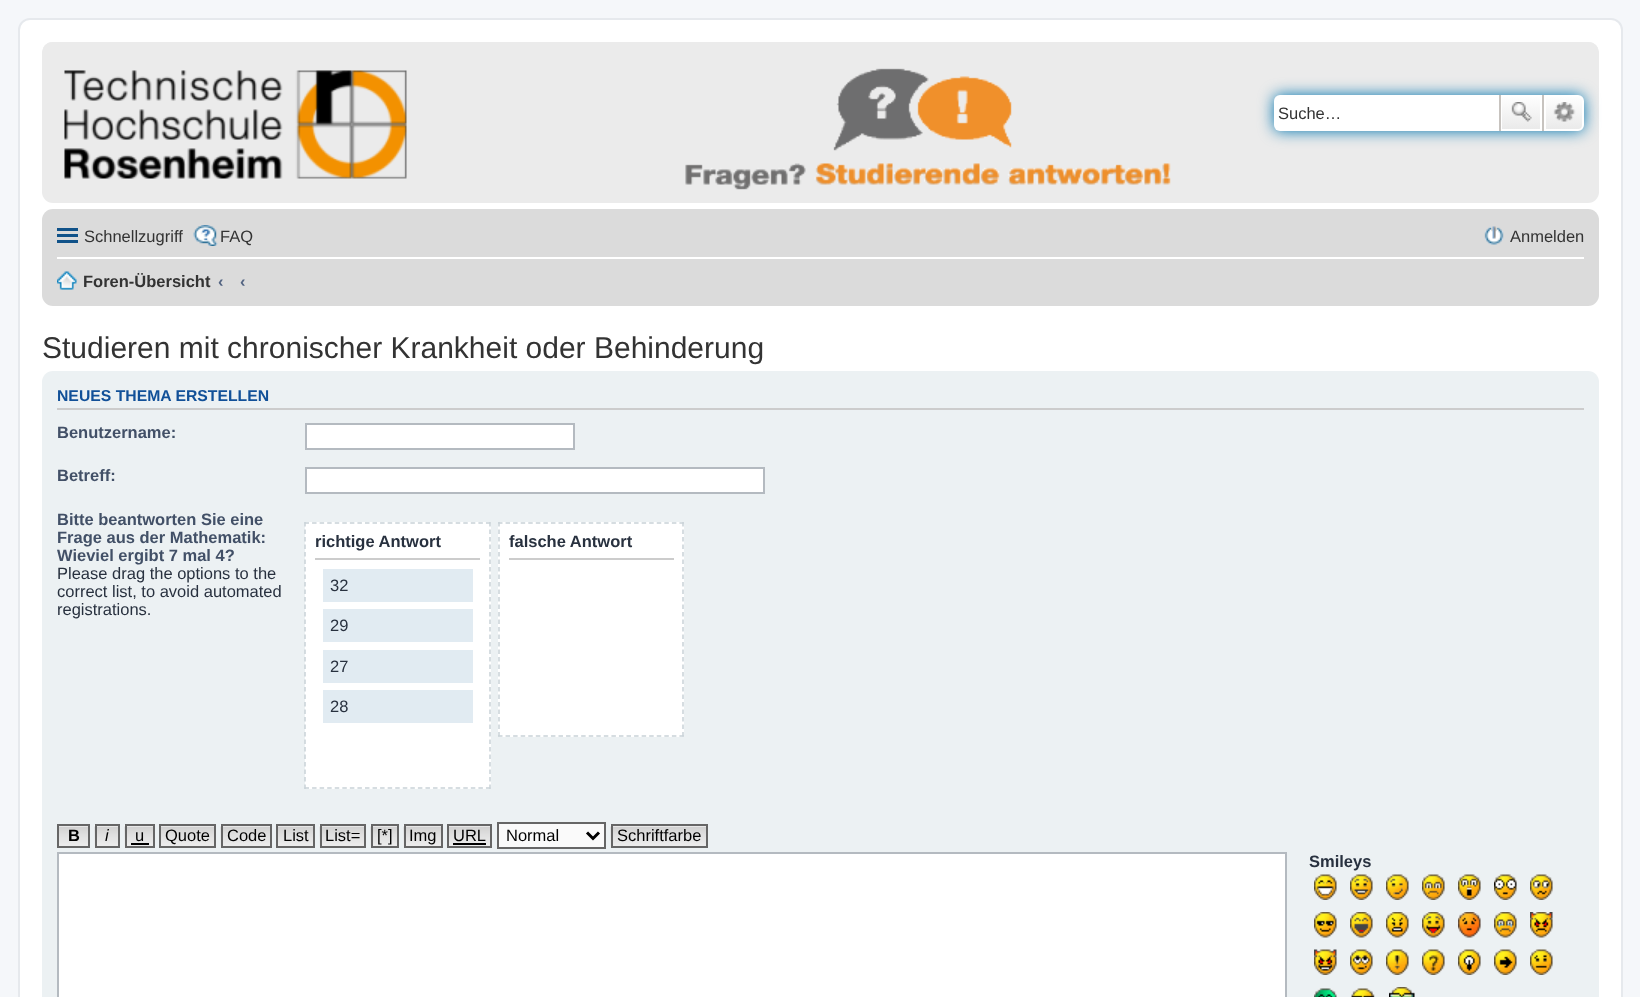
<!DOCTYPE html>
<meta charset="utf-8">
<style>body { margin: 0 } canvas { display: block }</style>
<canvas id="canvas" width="1640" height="997"></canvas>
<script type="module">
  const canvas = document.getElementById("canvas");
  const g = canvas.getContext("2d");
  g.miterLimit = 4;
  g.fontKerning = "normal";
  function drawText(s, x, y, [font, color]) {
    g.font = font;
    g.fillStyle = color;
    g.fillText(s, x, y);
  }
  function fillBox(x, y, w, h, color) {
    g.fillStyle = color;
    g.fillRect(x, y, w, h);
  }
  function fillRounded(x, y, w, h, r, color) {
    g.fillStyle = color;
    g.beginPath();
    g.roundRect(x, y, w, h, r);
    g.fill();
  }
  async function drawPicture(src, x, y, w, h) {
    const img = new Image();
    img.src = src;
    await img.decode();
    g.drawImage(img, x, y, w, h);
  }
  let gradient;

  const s1 = ["16.5px Liberation Sans", "#333333"];
  const s2 = ["bold 16.5px Liberation Sans", "#333333"];
  const s3 = ["bold 16.5px Liberation Sans", "#536482"];
  const s4 = ["30px Liberation Sans", "#333333"];
  const s5 = ["bold 15.75px Liberation Sans", "#115098"];
  const s6 = ["bold 16.5px Liberation Sans", "#425067"];
  const s7 = ["16.5px Liberation Sans", "#28313F"];
  const s8 = ["bold 16.5px Liberation Sans", "#28313F"];
  const s9 = ["bold 16.5px Liberation Sans", "#000000"];
  const s10 = ["italic 16.5px Liberation Sans", "#000000"];
  const s11 = ["16.5px Liberation Sans", "#000000"];

  fillBox(0, 0, 1640, 997, "#F5F7FA");
  g.fillStyle = "#FFFFFF";
  g.beginPath();
  g.roundRect(19, 19, 1603, 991, 11);
  g.fill();
  g.strokeStyle = "#E6E9ED";
  g.lineWidth = 2;
  g.stroke();
  fillRounded(42, 42, 1557, 161, 11, "#EBEBEB");
  await drawPicture("pic1.png", 43, 42, 1555, 6);
  await drawPicture("pic2.png", 64, 68, 1107, 122);
  g.fillStyle = "#0075B0";
  g.filter = "blur(7.5px)";
  g.beginPath();
  g.roundRect(1274, 95, 310, 36, 6);
  g.fill();
  g.filter = "none";
  g.fillStyle = "#FFFFFF";
  g.beginPath();
  g.roundRect(1274, 95, 225, 36, [6, 0, 0, 6]);
  g.fill();
  drawText("Suche…", 1278, 119, s1);
  gradient = g.createLinearGradient(1521, 95, 1521, 131);
  gradient.addColorStop(0, "#FFFFFF");
  gradient.addColorStop(1, "#E9E9E9");
  g.fillStyle = gradient;
  g.fillRect(1502, 97, 38, 32);
  g.strokeStyle = "#FFFFFF";
  g.strokeRect(1501, 96, 40, 34);
  fillBox(1542, 95, 2, 36, "#C7C3BF");
  fillBox(1499, 95, 2, 36, "#C7C3BF");
  await drawPicture("pic3.png", 1511, 102, 21, 20);
  gradient = g.createLinearGradient(1564, 95, 1564, 131);
  gradient.addColorStop(0, "#FFFFFF");
  gradient.addColorStop(1, "#E9E9E9");
  g.fillStyle = gradient;
  g.beginPath();
  g.roundRect(1545, 96, 38, 34, [0, 5, 5, 0]);
  g.fill();
  g.stroke();
  await drawPicture("pic4.png", 1553, 102, 23, 20);
  fillRounded(42, 209, 1557, 97, 11, "#DBDBDB");
  fillBox(57, 228, 21, 3, "#105289");
  fillBox(57, 234, 21, 3, "#105289");
  fillBox(57, 240, 21, 3, "#105289");
  drawText("Schnellzugriff", 84, 242, s1);
  await drawPicture("pic5.png", 193, 225, 25, 21);
  drawText("FAQ", 220, 242, s1);
  await drawPicture("pic6.png", 1484, 226, 20, 19);
  drawText("Anmelden", 1510, 242, s1);
  fillBox(57, 257, 1527, 2, "#FFFFFF");
  await drawPicture("pic7.png", 57, 271, 20, 19);
  drawText("Foren-Übersicht", 83, 287, s2);
  drawText("‹", 218, 287, s3);
  drawText("‹", 240, 287, s3);
  drawText("Studieren mit chronischer Krankheit oder Behinderung", 42, 358, s4);
  fillRounded(42, 371, 1557, 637, 11, "#ECF1F3");
  fillBox(57, 408, 1527, 2, "#CCCCCC");
  drawText("NEUES THEMA ERSTELLEN", 57, 401, s5);
  drawText("Benutzername:", 57, 438, s6);
  g.fillStyle = "#FFFFFF";
  g.beginPath();
  g.rect(306, 424, 268, 25);
  g.fill();
  g.strokeStyle = "#B4BAC0";
  g.stroke();
  drawText("Betreff:", 57, 481, s6);
  g.fillStyle = "#FFFFFF";
  g.beginPath();
  g.rect(306, 468, 458, 25);
  g.fill();
  g.stroke();
  drawText("Bitte beantworten Sie eine", 57, 525, s6);
  drawText("Frage aus der Mathematik:", 57, 543, s6);
  drawText("Wieviel ergibt 7 mal 4?", 57, 561, s6);
  drawText("Please drag the options to the", 57, 579, s7);
  drawText("correct list, to avoid automated", 57, 597, s7);
  drawText("registrations.", 57, 615, s7);
  fillBox(305, 522, 186, 267, "#FFFFFF");
  g.beginPath();
  g.moveTo(304.5, 523);
  g.lineTo(490.5, 523);
  g.strokeStyle = "#C9D2D8";
  g.lineWidth = 1.5;
  g.setLineDash([4.5, 3.06]);
  g.stroke();
  g.beginPath();
  g.moveTo(490, 522);
  g.lineTo(490, 789);
  g.setLineDash([4.5, 3]);
  g.stroke();
  g.beginPath();
  g.moveTo(304.5, 788);
  g.lineTo(490.5, 788);
  g.setLineDash([4.5, 3.06]);
  g.stroke();
  g.beginPath();
  g.moveTo(305, 522);
  g.lineTo(305, 789);
  g.setLineDash([4.5, 3]);
  g.stroke();
  drawText("richtige Antwort", 315, 547, s8);
  fillBox(315, 558, 165, 2, "#CCCCCC");
  fillBox(323, 569, 150, 33, "#E1EBF2");
  drawText("32", 330, 591, s7);
  fillBox(323, 609, 150, 33, "#E1EBF2");
  drawText("29", 330, 631, s7);
  fillBox(323, 650, 150, 33, "#E1EBF2");
  drawText("27", 330, 672, s7);
  fillBox(323, 690, 150, 33, "#E1EBF2");
  drawText("28", 330, 712, s7);
  fillBox(498, 522, 186, 215, "#FFFFFF");
  g.beginPath();
  g.moveTo(498, 523);
  g.lineTo(684, 523);
  g.setLineDash([4.5, 3.06]);
  g.stroke();
  g.beginPath();
  g.moveTo(683, 522);
  g.lineTo(683, 736.5);
  g.setLineDash([4.5, 3]);
  g.stroke();
  g.beginPath();
  g.moveTo(498, 736);
  g.lineTo(684, 736);
  g.setLineDash([4.5, 3.06]);
  g.stroke();
  g.beginPath();
  g.moveTo(499, 522);
  g.lineTo(499, 736.5);
  g.setLineDash([4.5, 3]);
  g.stroke();
  drawText("falsche Antwort", 509, 547, s8);
  fillBox(509, 558, 165, 2, "#CCCCCC");
  await drawPicture("pic8.png", 59, 826, 29, 20);
  g.strokeStyle = "#666666";
  g.lineWidth = 2;
  g.setLineDash([]);
  g.strokeRect(58, 825, 31, 22);
  drawText("B", 68, 841, s9);
  await drawPicture("pic9.png", 94, 825, 24, 23);
  g.strokeRect(96, 825, 23, 22);
  drawText("i", 105, 841, s10);
  await drawPicture("pic10.png", 124, 825, 29, 23);
  g.strokeRect(126, 825, 28, 22);
  drawText("u", 135, 841, s11);
  fillBox(131, 843, 18, 2, "#000000");
  await drawPicture("pic11.png", 161, 826, 53, 20);
  g.strokeRect(160, 825, 55, 22);
  drawText("Quote", 165, 841, s11);
  await drawPicture("pic12.png", 220, 825, 50, 23);
  g.strokeRect(222, 825, 49, 22);
  drawText("Code", 227, 841, s11);
  await drawPicture("pic13.png", 278, 826, 35, 20);
  g.strokeRect(277, 825, 37, 22);
  drawText("List", 283, 841, s11);
  await drawPicture("pic14.png", 319, 825, 45, 23);
  g.strokeRect(321, 825, 44, 22);
  drawText("List=", 325, 841, s11);
  await drawPicture("pic15.png", 370, 825, 27, 23);
  g.strokeRect(372, 825, 26, 22);
  drawText("[*]", 377, 841, s11);
  await drawPicture("pic16.png", 403, 825, 38, 23);
  g.strokeRect(405, 825, 37, 22);
  drawText("Img", 409, 841, s11);
  await drawPicture("pic17.png", 449, 826, 41, 20);
  g.strokeRect(448, 825, 43, 22);
  drawText("URL", 453, 841, s11);
  fillBox(453, 843, 33, 2, "#000000");
  g.fillStyle = "#FAFAFA";
  g.beginPath();
  g.rect(498, 823, 107, 25);
  g.fill();
  g.stroke();
  g.beginPath();
  g.moveTo(587, 832.5);
  g.lineTo(593, 838.5);
  g.lineTo(599, 832.5);
  g.strokeStyle = "#000000";
  g.lineWidth = 3;
  g.stroke();
  drawText("Normal", 506, 841, s11);
  await drawPicture("pic18.png", 610, 825, 96, 23);
  g.strokeStyle = "#666666";
  g.lineWidth = 2;
  g.strokeRect(612, 825, 95, 22);
  drawText("Schriftfarbe", 617, 841, s11);
  g.fillStyle = "#FFFFFF";
  g.beginPath();
  g.rect(58, 853, 1228, 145);
  g.fill();
  g.strokeStyle = "#B4BAC0";
  g.stroke();
  drawText("Smileys", 1309, 867, s8);
  await drawPicture("pic19.png", 1314, 874, 23, 26);
  await drawPicture("pic20.png", 1350, 874, 23, 26);
  await drawPicture("pic21.png", 1386, 874, 23, 26);
  await drawPicture("pic22.png", 1422, 874, 23, 26);
  await drawPicture("pic23.png", 1458, 874, 23, 26);
  await drawPicture("pic24.png", 1494, 874, 23, 26);
  await drawPicture("pic25.png", 1530, 874, 23, 26);
  await drawPicture("pic26.png", 1314, 912, 23, 26);
  await drawPicture("pic27.png", 1350, 912, 23, 26);
  await drawPicture("pic28.png", 1386, 912, 23, 26);
  await drawPicture("pic29.png", 1422, 912, 23, 26);
  await drawPicture("pic30.png", 1458, 912, 23, 26);
  await drawPicture("pic31.png", 1494, 912, 23, 26);
  await drawPicture("pic32.png", 1530, 912, 23, 26);
  await drawPicture("pic33.png", 1314, 949, 23, 26);
  await drawPicture("pic34.png", 1350, 949, 23, 26);
  await drawPicture("pic35.png", 1386, 949, 23, 26);
  await drawPicture("pic36.png", 1422, 949, 23, 26);
  await drawPicture("pic37.png", 1458, 949, 23, 26);
  await drawPicture("pic38.png", 1494, 949, 23, 26);
  await drawPicture("pic39.png", 1530, 949, 23, 26);
  await drawPicture("pic40.png", 1314, 988, 23, 9);
  await drawPicture("pic41.png", 1351, 988, 24, 9);
  await drawPicture("pic42.png", 1389, 987, 26, 10);
</script>
